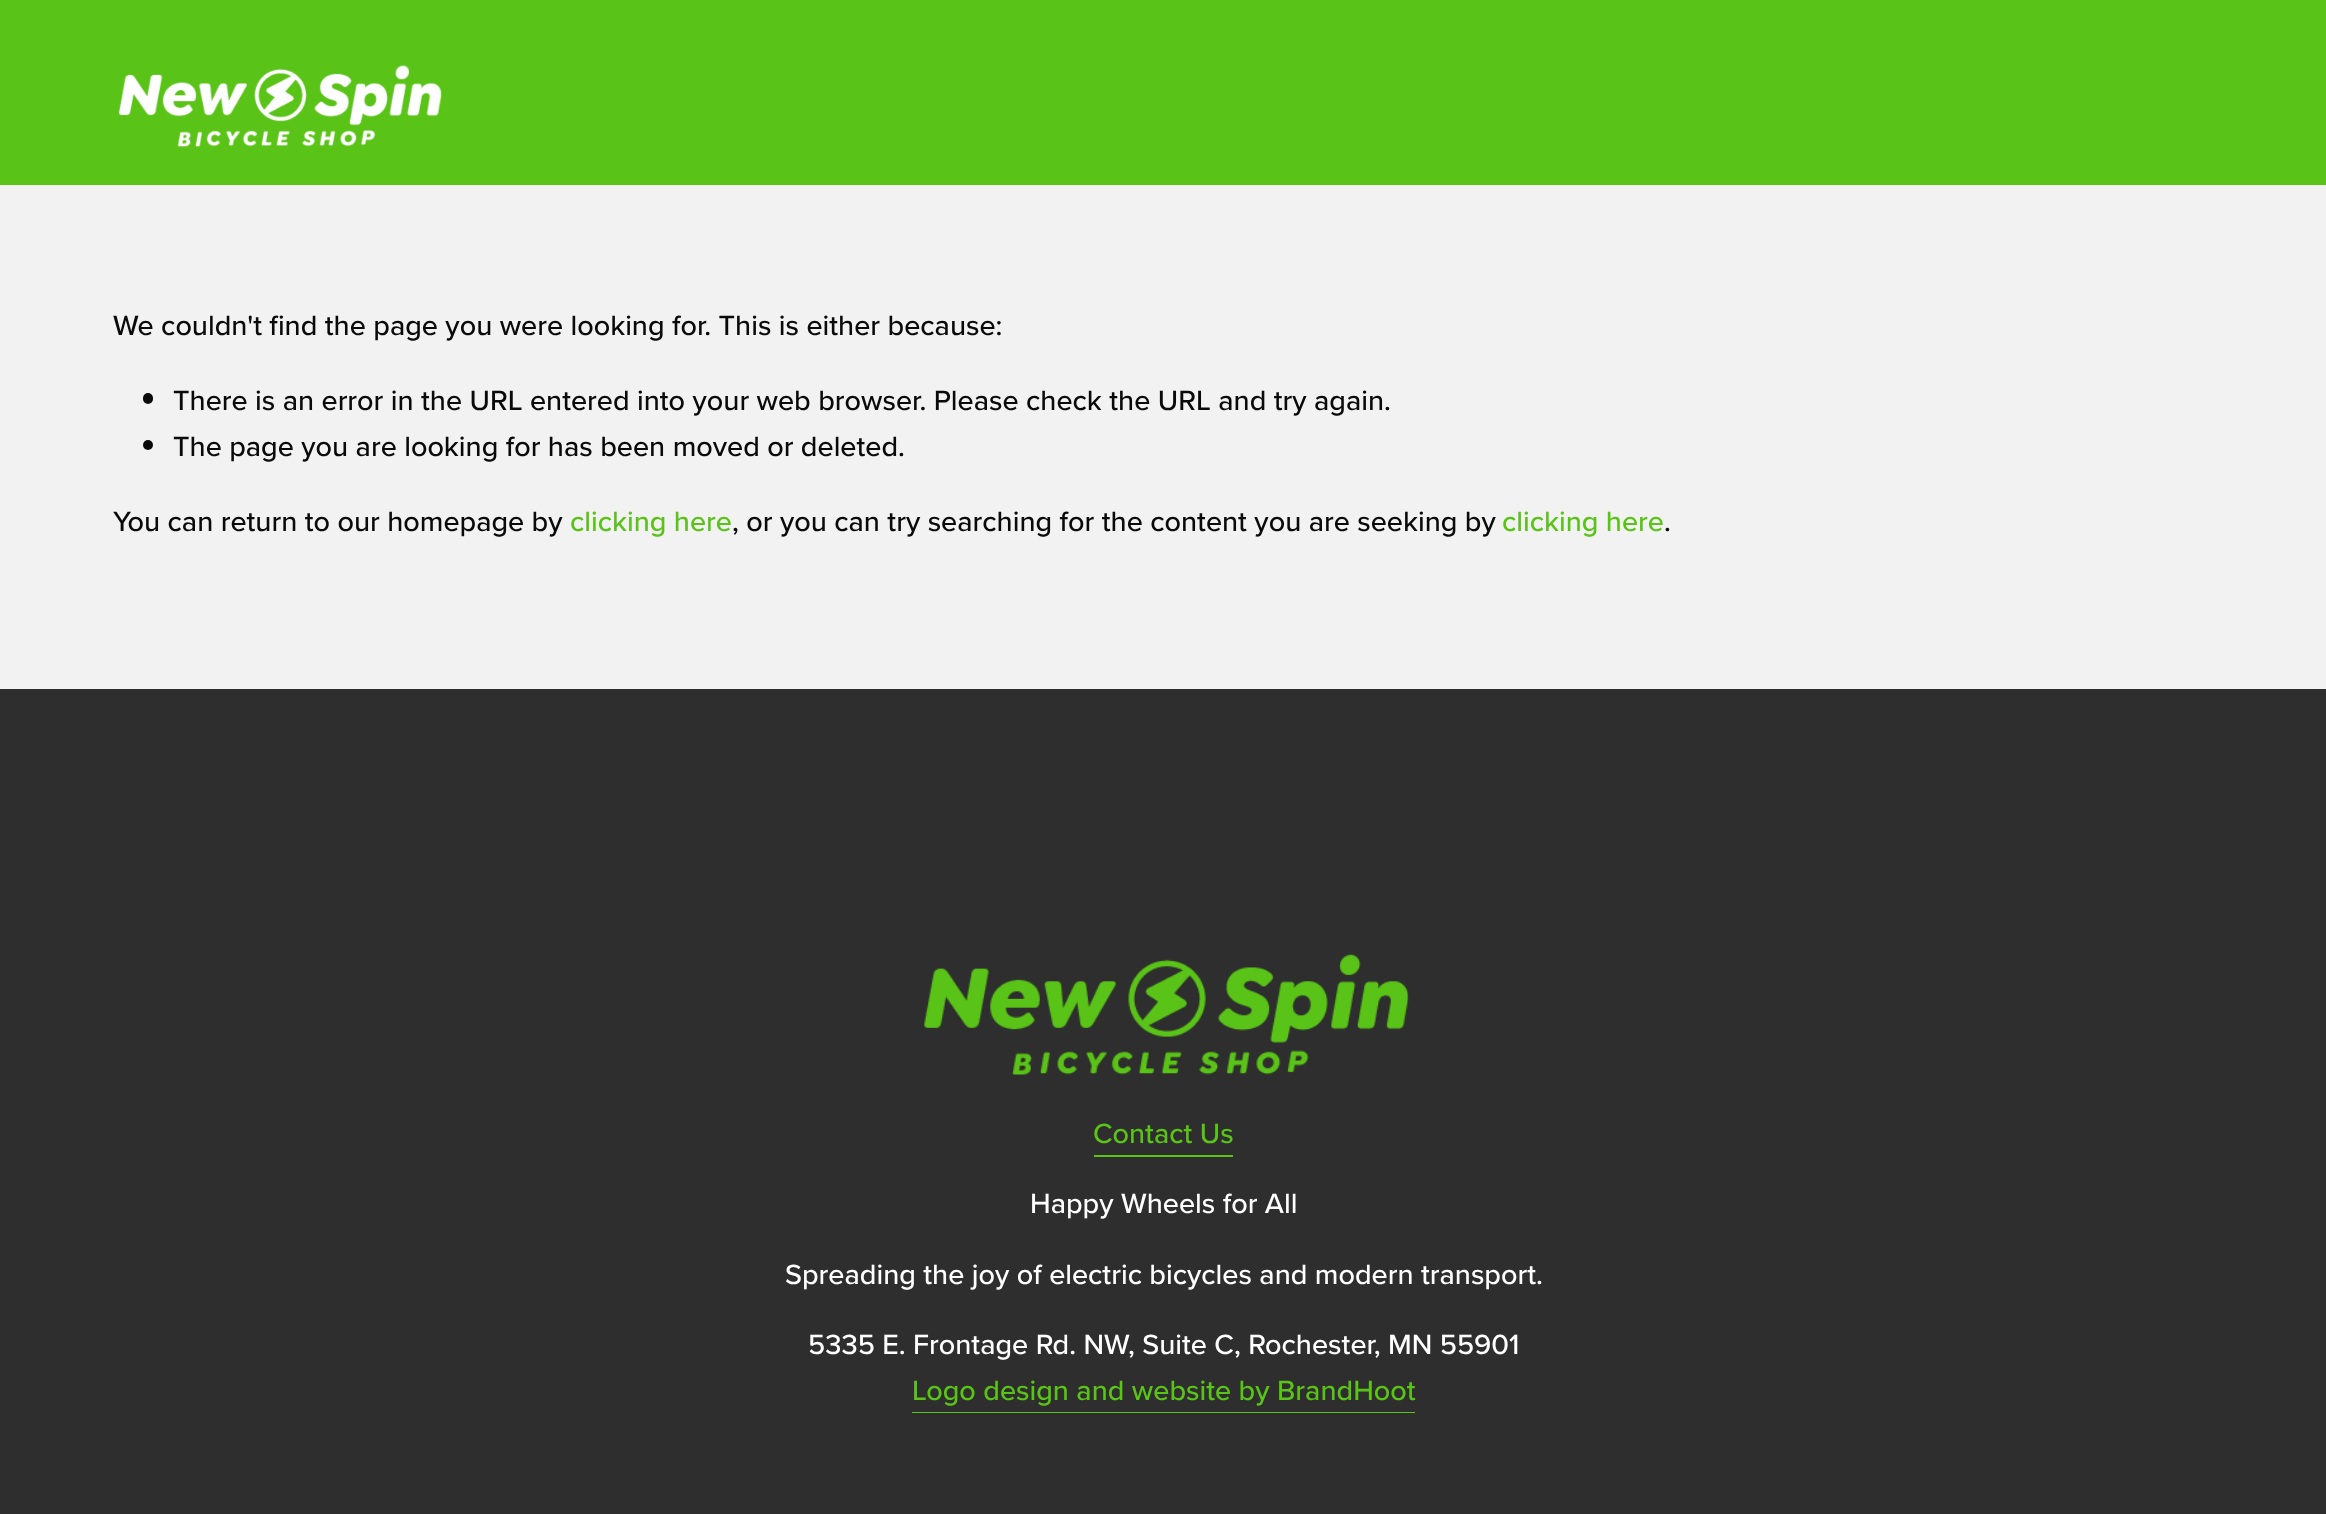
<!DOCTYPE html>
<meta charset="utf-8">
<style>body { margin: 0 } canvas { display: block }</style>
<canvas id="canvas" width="2326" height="1514"></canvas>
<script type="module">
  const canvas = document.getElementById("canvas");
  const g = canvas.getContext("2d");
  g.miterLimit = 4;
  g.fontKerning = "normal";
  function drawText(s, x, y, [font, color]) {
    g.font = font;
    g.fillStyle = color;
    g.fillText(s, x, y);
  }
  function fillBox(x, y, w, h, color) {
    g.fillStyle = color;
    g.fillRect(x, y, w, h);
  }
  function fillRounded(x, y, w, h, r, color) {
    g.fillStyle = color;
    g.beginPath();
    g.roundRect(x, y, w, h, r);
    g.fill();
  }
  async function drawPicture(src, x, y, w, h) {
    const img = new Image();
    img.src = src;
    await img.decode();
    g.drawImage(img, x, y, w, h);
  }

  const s1 = ["500 28.8px Proxima Nova", "#0A0A0A"];
  const s2 = ["500 28.8px Proxima Nova", "#5AC318"];
  const s3 = ["500 28.8px Proxima Nova", "#FFFFFF"];

  fillBox(0, 0, 2326, 1514, "#F2F2F2");
  fillBox(0, 0, 2326, 185, "#5AC318");
  await drawPicture("pic1.png", 118, 65, 324, 82);
  drawText("We couldn't find the page you were looking for. This is either because:", 113, 335, s1);
  fillRounded(143, 393, 10, 11, 5, "#0A0A0A");
  drawText("There is an error in the URL entered into your web browser. Please check the URL and try again.", 173, 410, s1);
  g.beginPath();
  g.arc(148, 445, 5, 0, Math.PI * 2);
  g.fill();
  drawText("The page you are looking for has been moved or deleted.", 173, 456, s1);
  drawText("You can return to our homepage by", 113, 531, s1);
  drawText("clicking here", 570, 531, s2);
  drawText(", or you can try searching for the content you are seeking by", 732, 531, s1);
  drawText("clicking here", 1502, 531, s2);
  drawText(".", 1664, 531, s1);
  fillBox(0, 689, 2326, 825, "#2E2E2E");
  await drawPicture("pic2.png", 924, 954, 485, 121);
  fillBox(1094, 1155, 139, 2, "#5AC318");
  drawText("Contact Us", 1093, 1143, s2);
  drawText("Happy Wheels for All", 1030, 1213, s3);
  drawText("Spreading the joy of electric bicycles and modern transport.", 785, 1284, s3);
  drawText("5335 E. Frontage Rd. NW, Suite C, Rochester, MN 55901", 808, 1354, s3);
  fillBox(912, 1412, 503, 1, "#5AC318");
  drawText("Logo design and website by BrandHoot", 912, 1400, s2);
</script>
